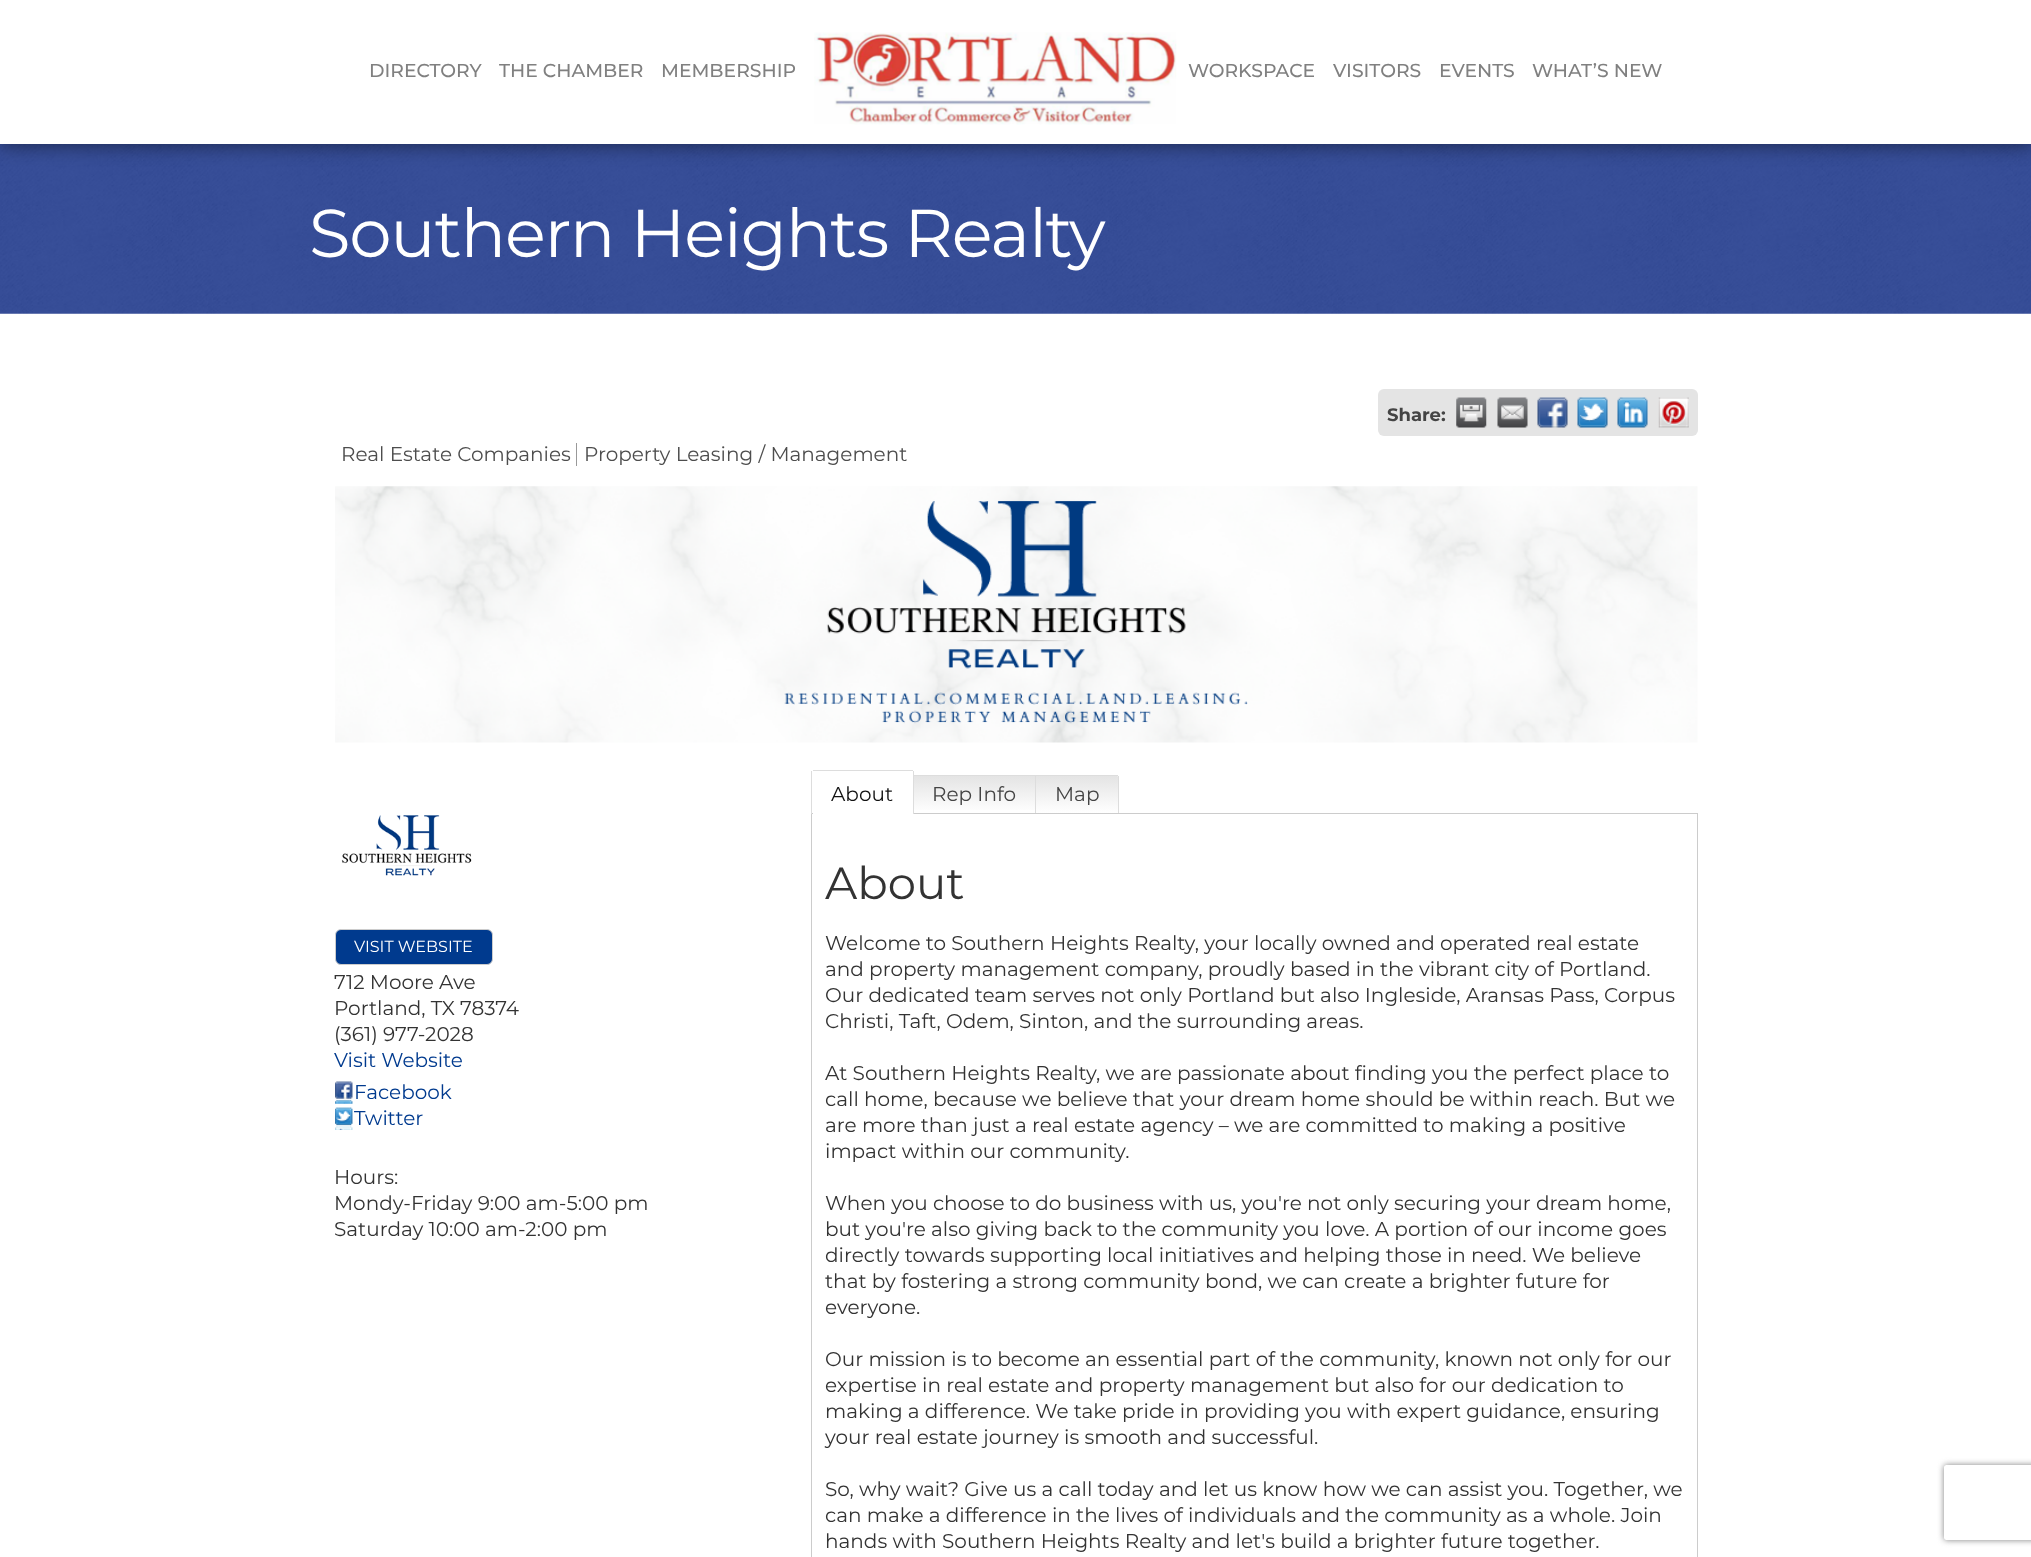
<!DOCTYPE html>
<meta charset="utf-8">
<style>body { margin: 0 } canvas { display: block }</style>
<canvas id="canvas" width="2031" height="1557"></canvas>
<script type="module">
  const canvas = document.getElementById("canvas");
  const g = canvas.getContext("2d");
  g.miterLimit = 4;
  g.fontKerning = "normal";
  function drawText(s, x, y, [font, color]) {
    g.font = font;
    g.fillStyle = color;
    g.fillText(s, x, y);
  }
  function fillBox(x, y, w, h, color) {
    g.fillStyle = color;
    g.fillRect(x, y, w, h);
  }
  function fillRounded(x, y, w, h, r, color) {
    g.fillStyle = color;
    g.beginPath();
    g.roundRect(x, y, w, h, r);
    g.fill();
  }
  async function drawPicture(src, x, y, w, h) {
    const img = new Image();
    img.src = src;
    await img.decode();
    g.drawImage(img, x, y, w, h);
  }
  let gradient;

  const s1 = ["500 18.75px Montserrat", "#808080"];
  const s2 = ["67.5px Montserrat", "#FFFFFF"];
  const s3 = ["bold 18px Montserrat", "#444444"];
  const s4 = ["20px Montserrat", "#4D4D4D"];
  const s5 = ["16px Montserrat", "#FFFFFF"];
  const s6 = ["20px Montserrat", "#333333"];
  const s7 = ["20px Montserrat", "#003A8E"];
  const s8 = ["20px Montserrat", "#111111"];
  const s9 = ["20px Montserrat", "#444444"];
  const s10 = ["45px Montserrat", "#333333"];

  fillBox(0, 0, 2031, 1557, "#FFFFFF");
  await drawPicture("pic2.png", 0, 144, 2031, 170);
  g.fillStyle = "rgba(0, 0, 0, 0.5)";
  g.filter = "blur(9.5px)";
  g.beginPath();
  g.rect(1, 1, 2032, 144);
  g.fill();
  g.filter = "none";
  fillBox(0, 0, 2031, 144, "#FFFFFF");
  drawText("DIRECTORY", 369, 77, s1);
  drawText("THE CHAMBER", 499, 77, s1);
  drawText("MEMBERSHIP", 661, 77, s1);
  await drawPicture("pic1.png", 814, 32, 363, 93);
  drawText("WORKSPACE", 1188, 77, s1);
  drawText("VISITORS", 1333, 77, s1);
  drawText("EVENTS", 1439, 77, s1);
  drawText("WHAT’S NEW", 1532, 77, s1);
  g.letterSpacing = "-1.25px";
  drawText("Southern Heights Realty", 309, 257, s2);
  fillRounded(1378, 389, 320, 47, 6, "#E4E4E4");
  g.letterSpacing = "0px";
  drawText("Share:", 1387, 421, s3);
  await drawPicture("pic3.png", 1456, 397, 31, 31);
  await drawPicture("pic4.png", 1497, 397, 31, 31);
  await drawPicture("pic5.png", 1537, 397, 31, 31);
  await drawPicture("pic6.png", 1577, 397, 31, 31);
  await drawPicture("pic7.png", 1617, 397, 31, 31);
  await drawPicture("pic8.png", 1658, 397, 31, 31);
  drawText("Real Estate Companies", 341, 461, s4);
  drawText("Property Leasing / Management", 584, 461, s4);
  fillBox(576, 443, 1, 23, "#999999");
  await drawPicture("pic9.png", 335, 486, 1363, 257);
  await drawPicture("pic10.png", 341, 815, 131, 61);
  g.fillStyle = "#003A8E";
  g.beginPath();
  g.roundRect(335.5, 929.5, 157, 35, 5.5);
  g.fill();
  g.strokeStyle = "#CCCCCC";
  g.stroke();
  drawText("VISIT WEBSITE", 354, 952, s5);
  drawText("712 Moore Ave", 334, 989, s6);
  drawText("Portland, TX 78374", 334, 1015, s6);
  drawText("(361) 977-2028", 334, 1041, s6);
  drawText("Visit Website", 334, 1067, s7);
  await drawPicture("pic11.png", 335, 1081, 18, 23);
  drawText("Facebook", 354, 1099, s7);
  await drawPicture("pic12.png", 335, 1107, 18, 23);
  drawText("Twitter", 354, 1125, s7);
  drawText("Hours:", 334, 1184, s6);
  drawText("Mondy-Friday 9:00 am-5:00 pm", 334, 1210, s6);
  drawText("Saturday 10:00 am-2:00 pm", 334, 1236, s6);
  g.strokeRect(811.5, 813.5, 886, 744);
  g.fillStyle = "#FFFFFF";
  g.beginPath();
  g.roundRect(813, 771, 100, 43, [1, 1, 0, 0]);
  g.fill();
  fillBox(813, 770, 100, 1, "#DDDDDD");
  fillBox(913, 771, 1, 43, "#DDDDDD");
  fillBox(811, 771, 1, 43, "#DDDDDD");
  drawText("About", 831, 801, s8);
  gradient = g.createLinearGradient(974, 776, 974, 813);
  gradient.addColorStop(0, "#E4E4E4");
  gradient.addColorStop(1, "#FFFFFF");
  g.fillStyle = gradient;
  g.fillRect(914, 776, 121, 34);
  fillBox(914, 775, 204, 1, "#DDDDDD");
  fillBox(1035, 775, 1, 38, "#DDDDDD");
  drawText("Rep Info", 932, 801, s9);
  gradient = g.createLinearGradient(1077, 776, 1077, 813);
  gradient.addColorStop(0, "#E4E4E4");
  gradient.addColorStop(1, "#FFFFFF");
  g.fillStyle = gradient;
  g.beginPath();
  g.roundRect(1036, 776, 82, 37, [0, 1, 0, 0]);
  g.fill();
  fillBox(1118, 776, 1, 37, "#DDDDDD");
  drawText("Map", 1055, 801, s9);
  drawText("About", 825, 899, s10);
  drawText("Welcome to Southern Heights Realty, your locally owned and operated real estate", 825, 950, s6);
  drawText("and property management company, proudly based in the vibrant city of Portland.", 825, 976, s6);
  drawText("Our dedicated team serves not only Portland but also Ingleside, Aransas Pass, Corpus", 825, 1002, s6);
  drawText("Christi, Taft, Odem, Sinton, and the surrounding areas.", 825, 1028, s6);
  drawText("At Southern Heights Realty, we are passionate about finding you the perfect place to", 825, 1080, s6);
  drawText("call home, because we believe that your dream home should be within reach. But we", 825, 1106, s6);
  drawText("are more than just a real estate agency – we are committed to making a positive", 825, 1132, s6);
  drawText("impact within our community.", 825, 1158, s6);
  drawText("When you choose to do business with us, you're not only securing your dream home,", 825, 1210, s6);
  drawText("but you're also giving back to the community you love. A portion of our income goes", 825, 1236, s6);
  drawText("directly towards supporting local initiatives and helping those in need. We believe", 825, 1262, s6);
  drawText("that by fostering a strong community bond, we can create a brighter future for", 825, 1288, s6);
  drawText("everyone.", 825, 1314, s6);
  drawText("Our mission is to become an essential part of the community, known not only for our", 825, 1366, s6);
  drawText("expertise in real estate and property management but also for our dedication to", 825, 1392, s6);
  drawText("making a difference. We take pride in providing you with expert guidance, ensuring", 825, 1418, s6);
  drawText("your real estate journey is smooth and successful.", 825, 1444, s6);
  drawText("So, why wait? Give us a call today and let us know how we can assist you. Together, we", 825, 1496, s6);
  drawText("can make a difference in the lives of individuals and the community as a whole. Join", 825, 1522, s6);
  drawText("hands with Southern Heights Realty and let's build a brighter future together.", 825, 1548, s6);
  g.save();
  g.beginPath();
  g.moveTo(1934, 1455);
  g.lineTo(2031, 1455);
  g.lineTo(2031, 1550);
  g.lineTo(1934, 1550);
  g.closePath();
  g.moveTo(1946.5, 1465);
  g.lineTo(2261.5, 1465);
  g.bezierCurveTo(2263, 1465, 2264, 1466, 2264, 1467.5);
  g.lineTo(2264, 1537.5);
  g.bezierCurveTo(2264, 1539, 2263, 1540, 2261.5, 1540);
  g.lineTo(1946.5, 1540);
  g.bezierCurveTo(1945, 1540, 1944, 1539, 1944, 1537.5);
  g.lineTo(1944, 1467.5);
  g.bezierCurveTo(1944, 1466, 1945, 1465, 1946.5, 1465);
  g.closePath();
  g.clip("evenodd");
  g.fillStyle = "#808080";
  g.filter = "blur(3px)";
  g.beginPath();
  g.roundRect(1944, 1465, 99, 75, 2.5);
  g.fill();
  g.filter = "none";
  g.restore();
</script>
